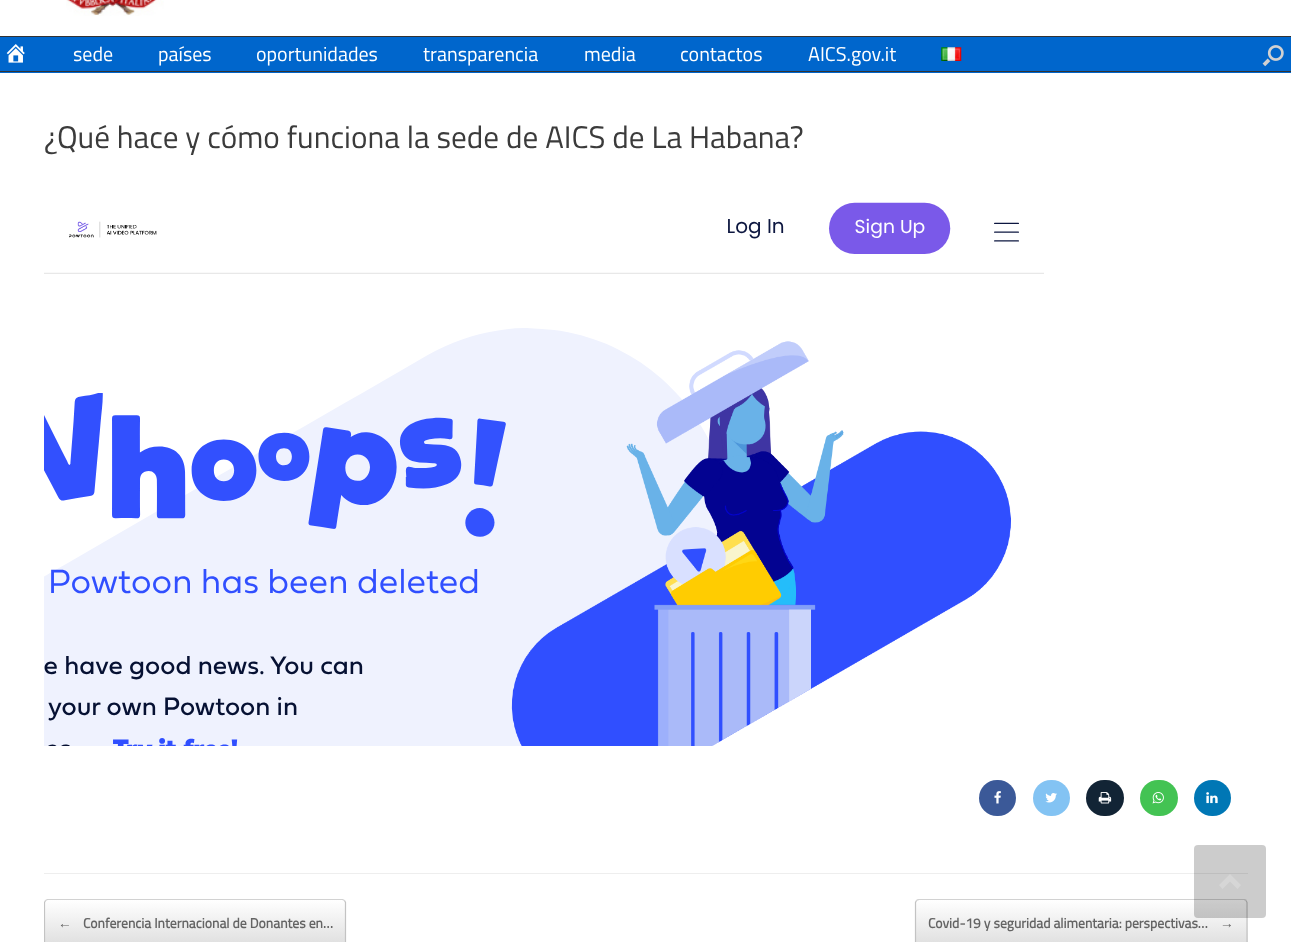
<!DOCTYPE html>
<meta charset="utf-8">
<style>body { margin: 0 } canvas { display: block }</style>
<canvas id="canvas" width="1291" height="942"></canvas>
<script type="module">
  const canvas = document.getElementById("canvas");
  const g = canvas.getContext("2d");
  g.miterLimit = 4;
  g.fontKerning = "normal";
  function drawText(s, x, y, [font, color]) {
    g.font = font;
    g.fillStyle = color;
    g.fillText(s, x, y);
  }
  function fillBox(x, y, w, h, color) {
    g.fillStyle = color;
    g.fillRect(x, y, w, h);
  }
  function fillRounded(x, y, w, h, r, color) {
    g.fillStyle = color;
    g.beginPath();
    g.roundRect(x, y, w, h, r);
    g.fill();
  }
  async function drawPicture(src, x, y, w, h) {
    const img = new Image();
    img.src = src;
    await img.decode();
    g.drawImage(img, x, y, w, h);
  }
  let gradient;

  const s1 = ["20px Titillium Web", "#FFFFFF"];
  const s2 = ["31.25px Titillium Web", "#3B3B3B"];
  const s3 = ["bold 13.75px Liberation Sans", "#646464"];
  const s4 = ["bold 13.75px Titillium Web", "#646464"];

  fillBox(0, 0, 1291, 942, "#FFFFFF");
  await drawPicture("pic1.png", 66, 0, 98, 16);
  fillBox(0, 37, 1291, 36, "#0066CC");
  fillBox(0, 36, 1291, 1, "#333333");
  fillBox(0, 71, 1291, 1, "#333333");
  await drawPicture("pic2.png", 6, 44, 19, 19);
  drawText("sede", 73, 61, s1);
  drawText("países", 158, 61, s1);
  drawText("oportunidades", 256, 61, s1);
  drawText("transparencia", 423, 61, s1);
  drawText("media", 584, 61, s1);
  drawText("contactos", 680, 61, s1);
  drawText("AICS.gov.it", 808, 61, s1);
  await drawPicture("pic3.png", 941, 47, 21, 14);
  await drawPicture("pic4.png", 1262, 45, 22, 22);
  fillBox(44, 873, 1204, 1, "#EEEEEE");
  drawText("¿Qué hace y cómo funciona la sede de AICS de La Habana?", 44, 148, s2);
  await drawPicture("pic5.png", 44, 202, 1000, 544);
  fillRounded(979, 780, 37, 36, 18, "#3B5998");
  await drawPicture("pic6.png", 994, 791, 7, 13);
  fillRounded(1033, 780, 37, 36, 18, "#83C3F3");
  await drawPicture("pic7.png", 1045, 793, 12, 10);
  fillRounded(1086, 780, 38, 36, 18, "#122435");
  await drawPicture("pic8.png", 1098, 792, 14, 12);
  fillRounded(1140, 780, 38, 36, 18, "#43C353");
  await drawPicture("pic9.png", 1152, 792, 12, 12);
  fillRounded(1194, 780, 37, 36, 18, "#0077B5");
  await drawPicture("pic10.png", 1206, 792, 12, 12);
  g.save();
  g.beginPath();
  g.roundRect(44, 899, 302, 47, 4);
  g.clip();
  gradient = g.createLinearGradient(45, 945, 45, 900);
  gradient.addColorStop(0, "#DFDFDF");
  gradient.addColorStop(1, "#FFFFFF");
  g.fillStyle = gradient;
  g.fillRect(44, 900, 302, 42);
  g.restore();
  g.save();
  g.beginPath();
  g.rect(44, 899, 1204, 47);
  g.clip();
  g.beginPath();
  g.moveTo(45.5, 900.5);
  g.lineTo(47.5, 899.5);
  g.lineTo(342.5, 899.5);
  g.lineTo(344.5, 900.5);
  g.strokeStyle = "#D2D2D2";
  g.lineWidth = 1.2;
  g.stroke();
  g.restore();
  g.beginPath();
  g.moveTo(344.5, 900.5);
  g.lineTo(345.5, 902.5);
  g.lineTo(345.5, 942.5);
  g.lineTo(344.5, 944.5);
  g.strokeStyle = "#C3C3C3";
  g.lineWidth = 1.2;
  g.stroke();
  g.save();
  g.beginPath();
  g.rect(44, 899, 1204, 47);
  g.clip();
  g.beginPath();
  g.moveTo(45.5, 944.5);
  g.lineTo(44.5, 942.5);
  g.lineTo(44.5, 902.5);
  g.lineTo(45.5, 900.5);
  g.stroke();
  g.restore();
  drawText("←", 58, 928, s3);
  drawText("Conferencia Internacional de Donantes en…", 83, 928, s4);
  g.save();
  g.beginPath();
  g.roundRect(915, 899, 333, 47, 4);
  g.clip();
  gradient = g.createLinearGradient(916, 900, 916, 855);
  gradient.addColorStop(0, "#DFDFDF");
  gradient.addColorStop(1, "#FFFFFF");
  g.fillStyle = gradient;
  g.fillRect(915, 899, 333, 1);
  gradient = g.createLinearGradient(916, 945, 916, 900);
  gradient.addColorStop(0, "#DFDFDF");
  gradient.addColorStop(1, "#FFFFFF");
  g.fillStyle = gradient;
  g.fillRect(915, 900, 333, 42);
  g.restore();
  g.save();
  g.beginPath();
  g.rect(44, 899, 1204, 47);
  g.clip();
  g.beginPath();
  g.moveTo(916.5, 900.5);
  g.lineTo(919, 899.5);
  g.lineTo(1244, 899.5);
  g.lineTo(1246, 900.5);
  g.strokeStyle = "#D2D2D2";
  g.stroke();
  g.restore();
  g.beginPath();
  g.moveTo(1246, 900.5);
  g.lineTo(1247, 902.5);
  g.lineTo(1247, 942.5);
  g.lineTo(1246, 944.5);
  g.stroke();
  g.beginPath();
  g.moveTo(916.5, 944.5);
  g.lineTo(915.5, 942.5);
  g.lineTo(915.5, 902.5);
  g.lineTo(916.5, 900.5);
  g.stroke();
  drawText("Covid-19 y seguridad alimentaria: perspectivas…", 928, 928, s4);
  drawText("→", 1220, 928, s3);
  fillRounded(1194, 845, 72, 73, 4, "rgba(0, 0, 0, 0.2)");
  g.fillStyle = "#D6D6D6";
  g.beginPath();
  g.moveTo(1241, 885);
  g.lineTo(1230, 874);
  g.lineTo(1219, 885);
  g.lineTo(1222.5, 889);
  g.lineTo(1230, 881.5);
  g.lineTo(1237.5, 889);
  g.closePath();
  g.fill();
</script>
